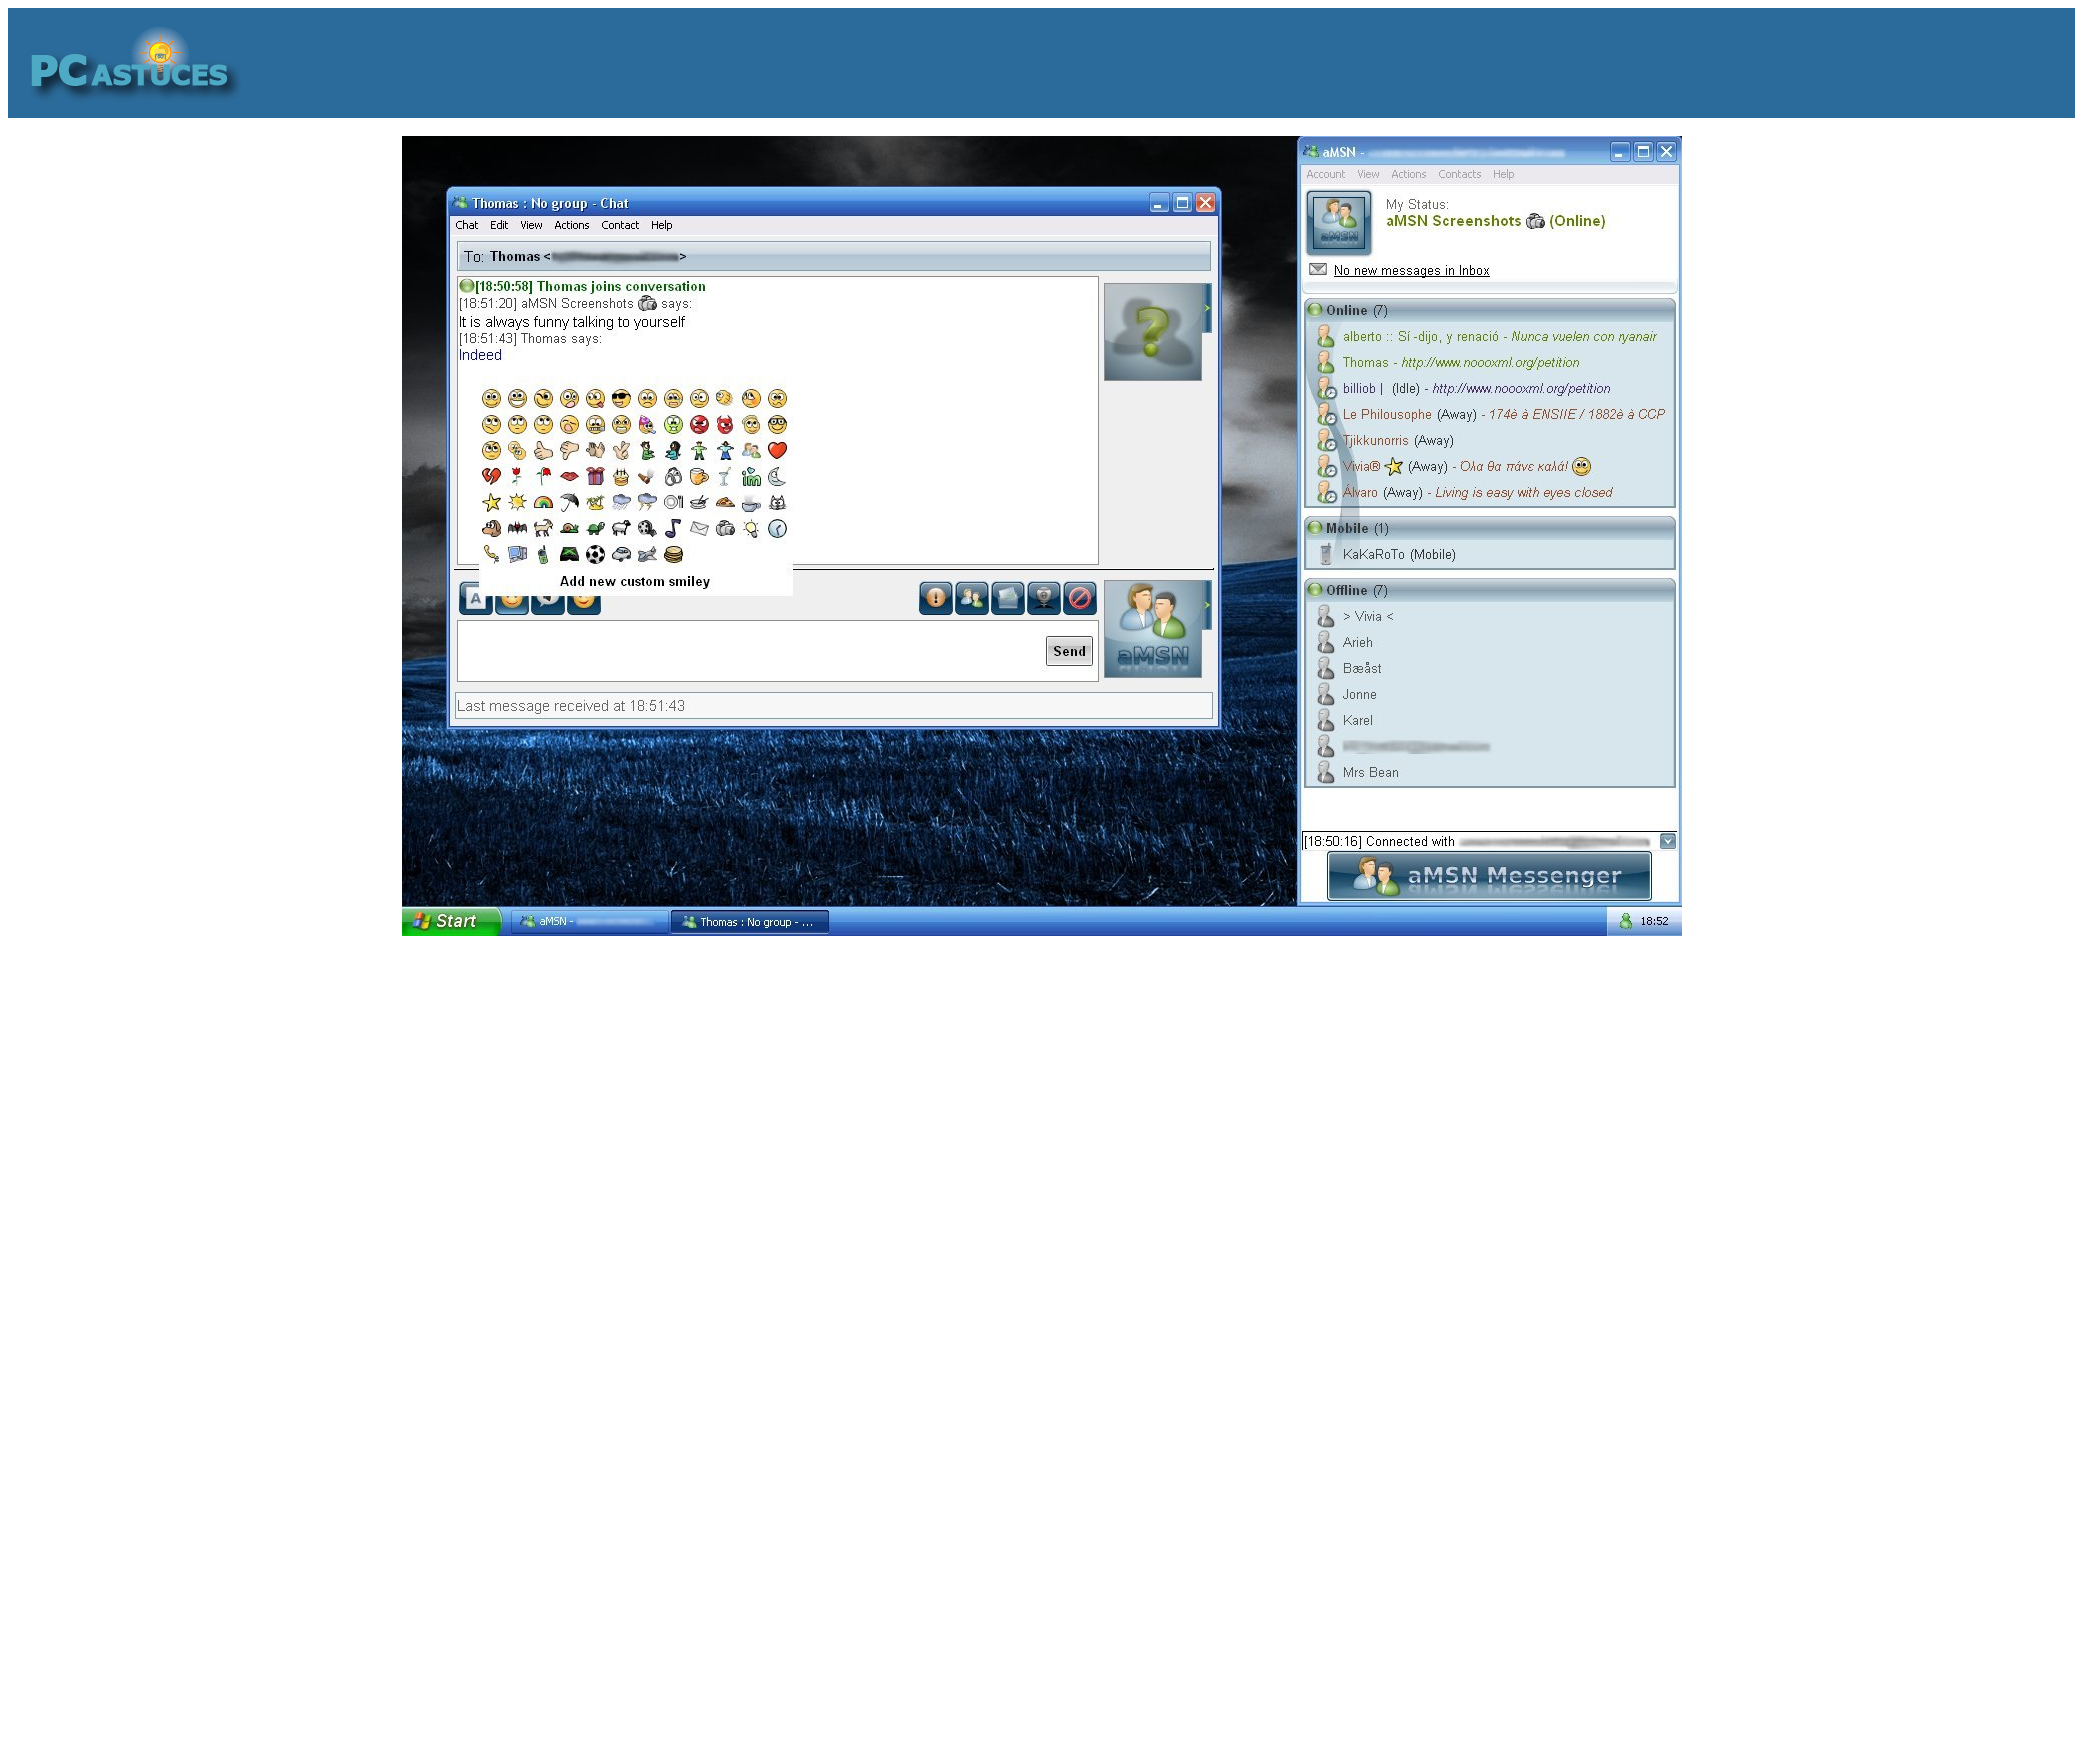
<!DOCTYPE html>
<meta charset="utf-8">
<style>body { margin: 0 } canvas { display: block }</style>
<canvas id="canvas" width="2083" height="1737"></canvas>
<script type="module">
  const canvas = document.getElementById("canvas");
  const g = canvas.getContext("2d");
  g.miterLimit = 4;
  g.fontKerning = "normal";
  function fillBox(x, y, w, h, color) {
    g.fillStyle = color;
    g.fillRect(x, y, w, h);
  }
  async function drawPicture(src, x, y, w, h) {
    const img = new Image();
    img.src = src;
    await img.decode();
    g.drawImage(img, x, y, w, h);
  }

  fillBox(0, 0, 2083, 1737, "#FFFFFF");
  fillBox(8, 8, 2067, 110, "#2B6B9C");
  await drawPicture("pic1.png", 30, 26, 211, 77);
  await drawPicture("pic2.png", 402, 136, 1280, 800);
</script>
